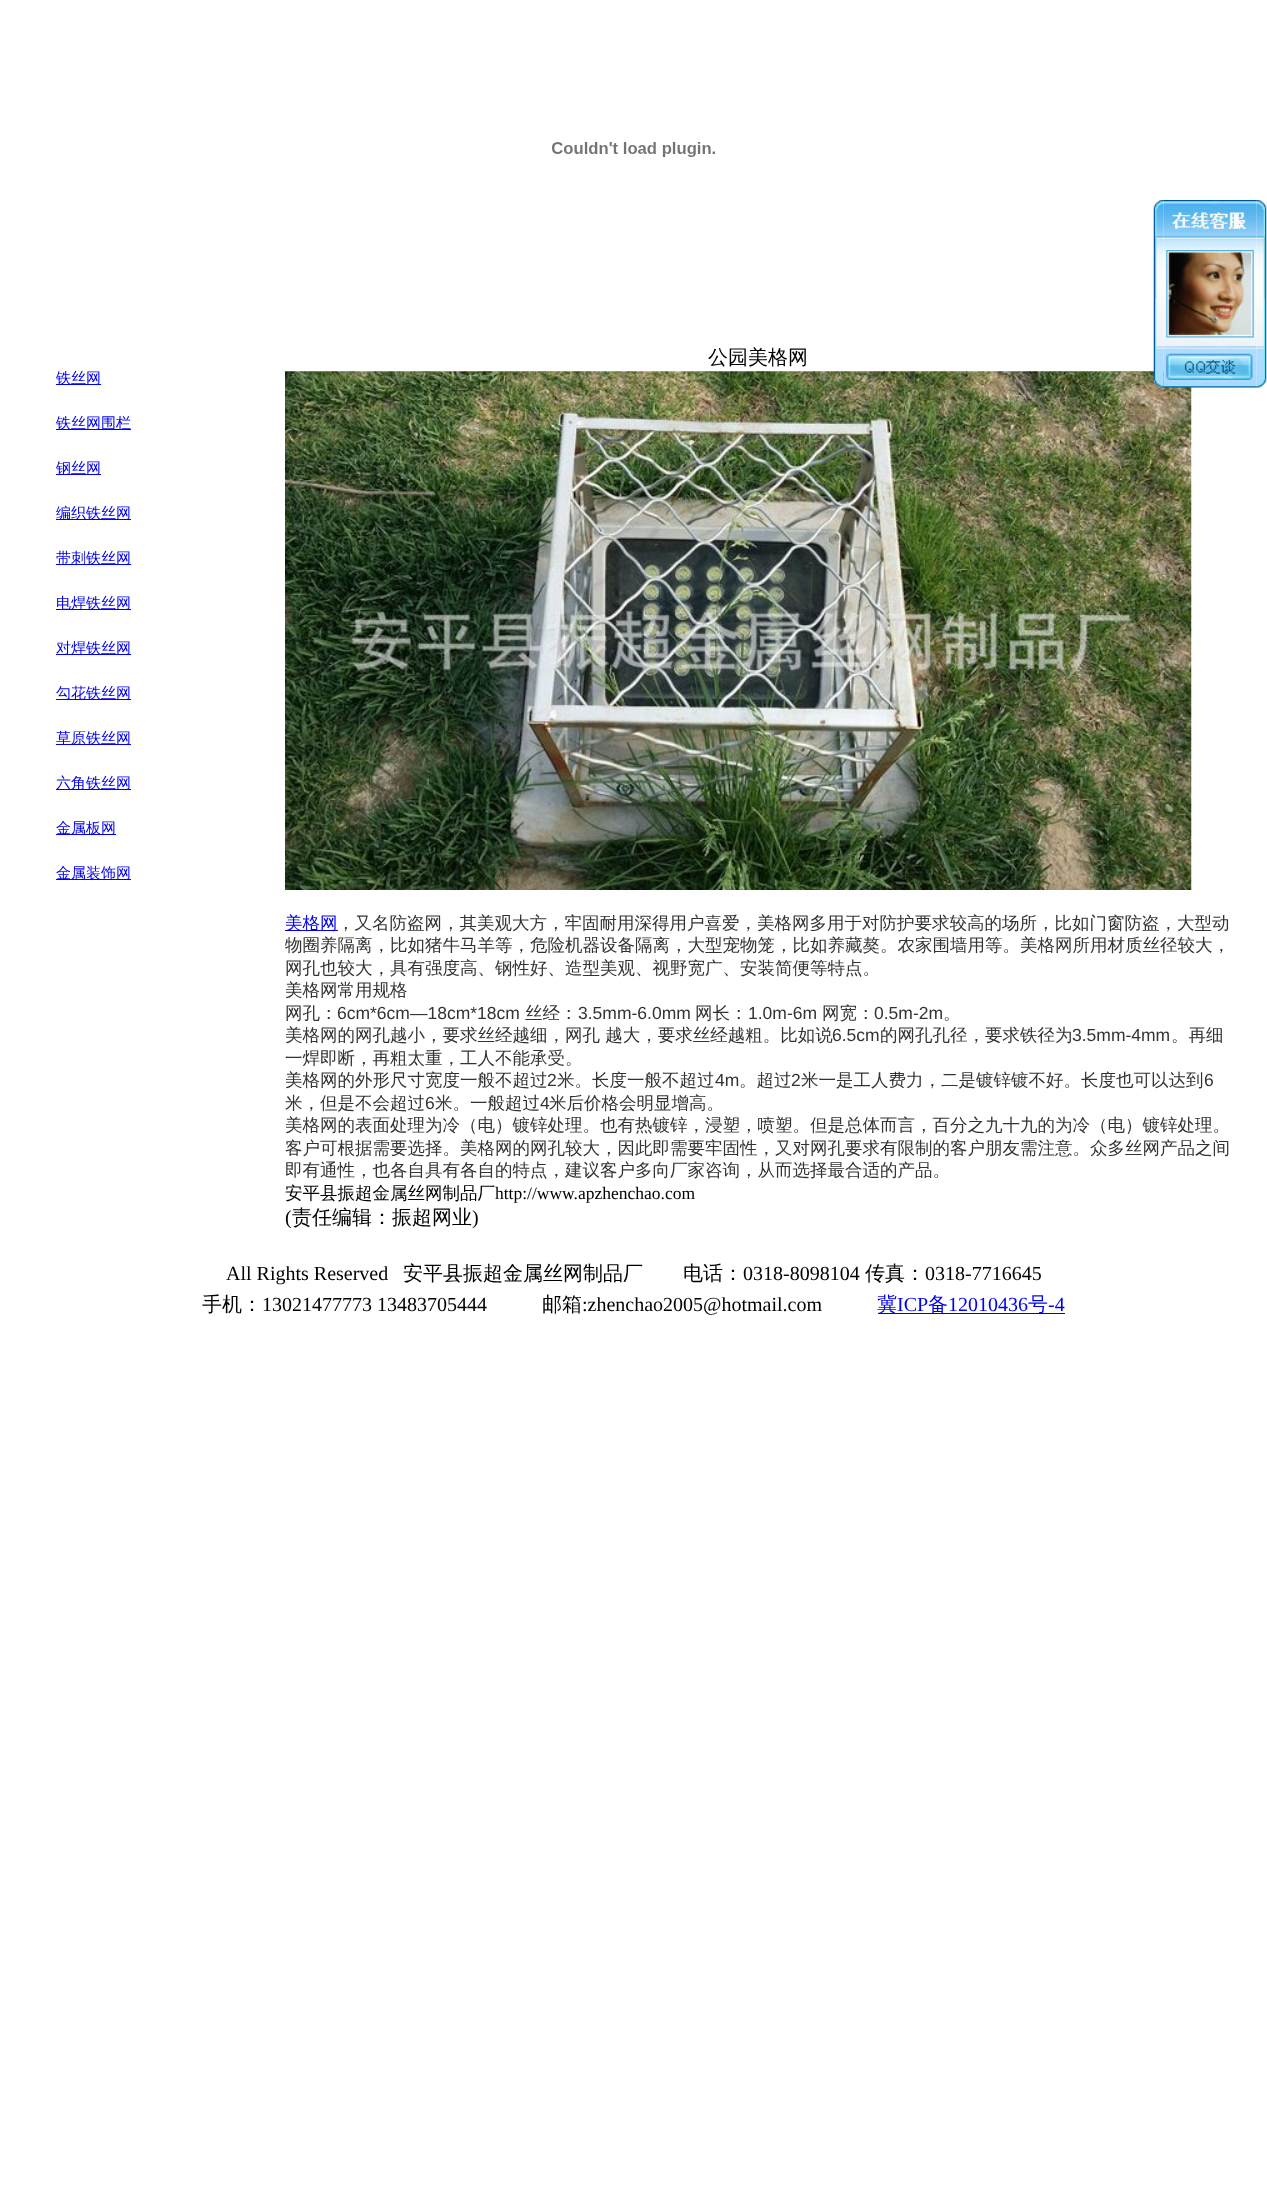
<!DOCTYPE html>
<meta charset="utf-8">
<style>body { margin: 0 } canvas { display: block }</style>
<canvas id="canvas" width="1267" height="2208"></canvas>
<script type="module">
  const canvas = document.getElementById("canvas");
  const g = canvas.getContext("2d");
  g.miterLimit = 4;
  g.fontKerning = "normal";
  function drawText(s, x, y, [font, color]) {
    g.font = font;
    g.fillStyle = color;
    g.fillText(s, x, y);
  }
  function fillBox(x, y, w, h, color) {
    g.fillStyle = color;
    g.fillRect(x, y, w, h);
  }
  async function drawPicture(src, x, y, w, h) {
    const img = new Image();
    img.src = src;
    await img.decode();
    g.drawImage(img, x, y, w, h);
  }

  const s1 = ["500 15px WenQuanYi Zen Hei", "#0000EE"];
  const s2 = ["500 20px WenQuanYi Zen Hei", "#000000"];
  const s3 = ["500 17.5px WenQuanYi Zen Hei", "#0000EE"];
  const s4 = ["500 17.5px WenQuanYi Zen Hei", "#333333"];
  const s5 = ["17.5px Liberation Sans", "#333333"];
  const s6 = ["500 17.5px WenQuanYi Zen Hei", "#000000"];
  const s7 = ["17.5px Liberation Serif", "#000000"];
  const s8 = ["20px Liberation Serif", "#000000"];
  const s9 = ["500 20px WenQuanYi Zen Hei", "#0000EE"];
  const s10 = ["20px Liberation Serif", "#0000EE"];

  fillBox(0, 0, 1267, 2208, "#FFFFFF");
  await drawPicture("pic1.png", 552, 142, 163, 15);
  fillBox(56, 384, 45, 1, "#0000EE");
  drawText("铁丝网", 56, 383, s1);
  fillBox(56, 429, 75, 1, "#0000EE");
  drawText("铁丝网围栏", 56, 428, s1);
  fillBox(56, 474, 45, 1, "#0000EE");
  drawText("钢丝网", 56, 473, s1);
  fillBox(56, 519, 75, 1, "#0000EE");
  drawText("编织铁丝网", 56, 518, s1);
  fillBox(56, 564, 75, 1, "#0000EE");
  drawText("带刺铁丝网", 56, 563, s1);
  fillBox(56, 609, 75, 1, "#0000EE");
  drawText("电焊铁丝网", 56, 608, s1);
  fillBox(56, 654, 75, 1, "#0000EE");
  drawText("对焊铁丝网", 56, 653, s1);
  fillBox(56, 699, 75, 1, "#0000EE");
  drawText("勾花铁丝网", 56, 698, s1);
  fillBox(56, 744, 75, 1, "#0000EE");
  drawText("草原铁丝网", 56, 743, s1);
  fillBox(56, 789, 75, 1, "#0000EE");
  drawText("六角铁丝网", 56, 788, s1);
  fillBox(56, 834, 60, 1, "#0000EE");
  drawText("金属板网", 56, 833, s1);
  fillBox(56, 879, 75, 1, "#0000EE");
  drawText("金属装饰网", 56, 878, s1);
  drawText("公园美格网", 708, 364, s2);
  await drawPicture("pic2.png", 285, 371, 907, 519);
  fillBox(285, 930, 53, 1, "#0000EE");
  drawText("美格网", 285, 929, s3);
  drawText("，又名防盗网，其美观大方，牢固耐用深得用户喜爱，美格网多用于对防护要求较高的场所，比如门窗防盗，大型动", 337, 929, s4);
  drawText("物圈养隔离，比如猪牛马羊等，危险机器设备隔离，大型宠物笼，比如养藏獒。农家围墙用等。美格网所用材质丝径较大，", 285, 951, s4);
  drawText("网孔也较大，具有强度高、钢性好、造型美观、视野宽广、安装简便等特点。", 285, 974, s4);
  drawText("美格网常用规格", 285, 996, s4);
  drawText("网孔：", 285, 1019, s4);
  drawText("6cm*6cm—18cm*18cm", 337, 1019, s5);
  drawText("丝经：", 525, 1019, s4);
  drawText("3.5mm-6.0mm", 578, 1019, s5);
  drawText("网长：", 695, 1019, s4);
  drawText("1.0m-6m", 748, 1019, s5);
  drawText("网宽：", 822, 1019, s4);
  drawText("0.5m-2m", 874, 1019, s5);
  drawText("。", 943, 1019, s4);
  drawText("美格网的网孔越小，要求丝经越细，网孔 越大，要求丝经越粗。比如说", 285, 1041, s4);
  drawText("6.5cm", 832, 1041, s5);
  drawText("的网孔孔径，要求铁径为", 880, 1041, s4);
  drawText("3.5mm-4mm", 1072, 1041, s5);
  drawText("。再细", 1171, 1041, s4);
  drawText("一焊即断，再粗太重，工人不能承受。", 285, 1064, s4);
  drawText("美格网的外形尺寸宽度一般不超过", 285, 1086, s4);
  drawText("2", 547, 1086, s5);
  drawText("米。长度一般不超过", 557, 1086, s4);
  drawText("4m", 715, 1086, s5);
  drawText("。超过", 739, 1086, s4);
  drawText("2", 791, 1086, s5);
  drawText("米一是工人费力，二是镀锌镀不好。长度也可以达到", 801, 1086, s4);
  drawText("6", 1204, 1086, s5);
  drawText("米，但是不会超过", 285, 1109, s4);
  drawText("6", 425, 1109, s5);
  drawText("米。一般超过", 435, 1109, s4);
  drawText("4", 540, 1109, s5);
  drawText("米后价格会明显增高。", 549, 1109, s4);
  drawText("美格网的表面处理为冷（电）镀锌处理。也有热镀锌，浸塑，喷塑。但是总体而言，百分之九十九的为冷（电）镀锌处理。", 285, 1131, s4);
  drawText("客户可根据需要选择。美格网的网孔较大，因此即需要牢固性，又对网孔要求有限制的客户朋友需注意。众多丝网产品之间", 285, 1154, s4);
  drawText("即有通性，也各自具有各自的特点，建议客户多向厂家咨询，从而选择最合适的产品。", 285, 1176, s4);
  drawText("安平县振超金属丝网制品厂", 285, 1199, s6);
  drawText("http://www.apzhenchao.com", 495, 1199, s7);
  drawText("(", 285, 1224, s8);
  drawText("责任编辑：振超网业", 292, 1224, s2);
  drawText(")", 472, 1224, s8);
  await drawPicture("pic3.png", 1153, 200, 11, 188);
  await drawPicture("pic4.png", 1163, 200, 94, 188);
  await drawPicture("pic5.png", 1166, 250, 88, 88);
  await drawPicture("pic6.png", 1166, 353, 87, 27);
  await drawPicture("pic7.png", 1256, 200, 11, 188);
  drawText("All Rights Reserved", 226, 1280, s8);
  drawText("安平县振超金属丝网制品厂", 403, 1280, s2);
  drawText("电话：", 683, 1280, s2);
  drawText("0318-8098104", 743, 1280, s8);
  drawText("传真：", 865, 1280, s2);
  drawText("0318-7716645", 925, 1280, s8);
  drawText("手机：", 202, 1311, s2);
  drawText("13021477773 13483705444", 262, 1311, s8);
  drawText("邮箱", 542, 1311, s2);
  drawText(":zhenchao2005@hotmail.com", 582, 1311, s8);
  fillBox(878, 1313, 187, 1, "#0000EE");
  drawText("冀", 877, 1311, s9);
  drawText("ICP", 897, 1311, s10);
  drawText("备", 928, 1311, s9);
  drawText("12010436", 948, 1311, s10);
  drawText("号", 1028, 1311, s9);
  drawText("-4", 1048, 1311, s10);
</script>
